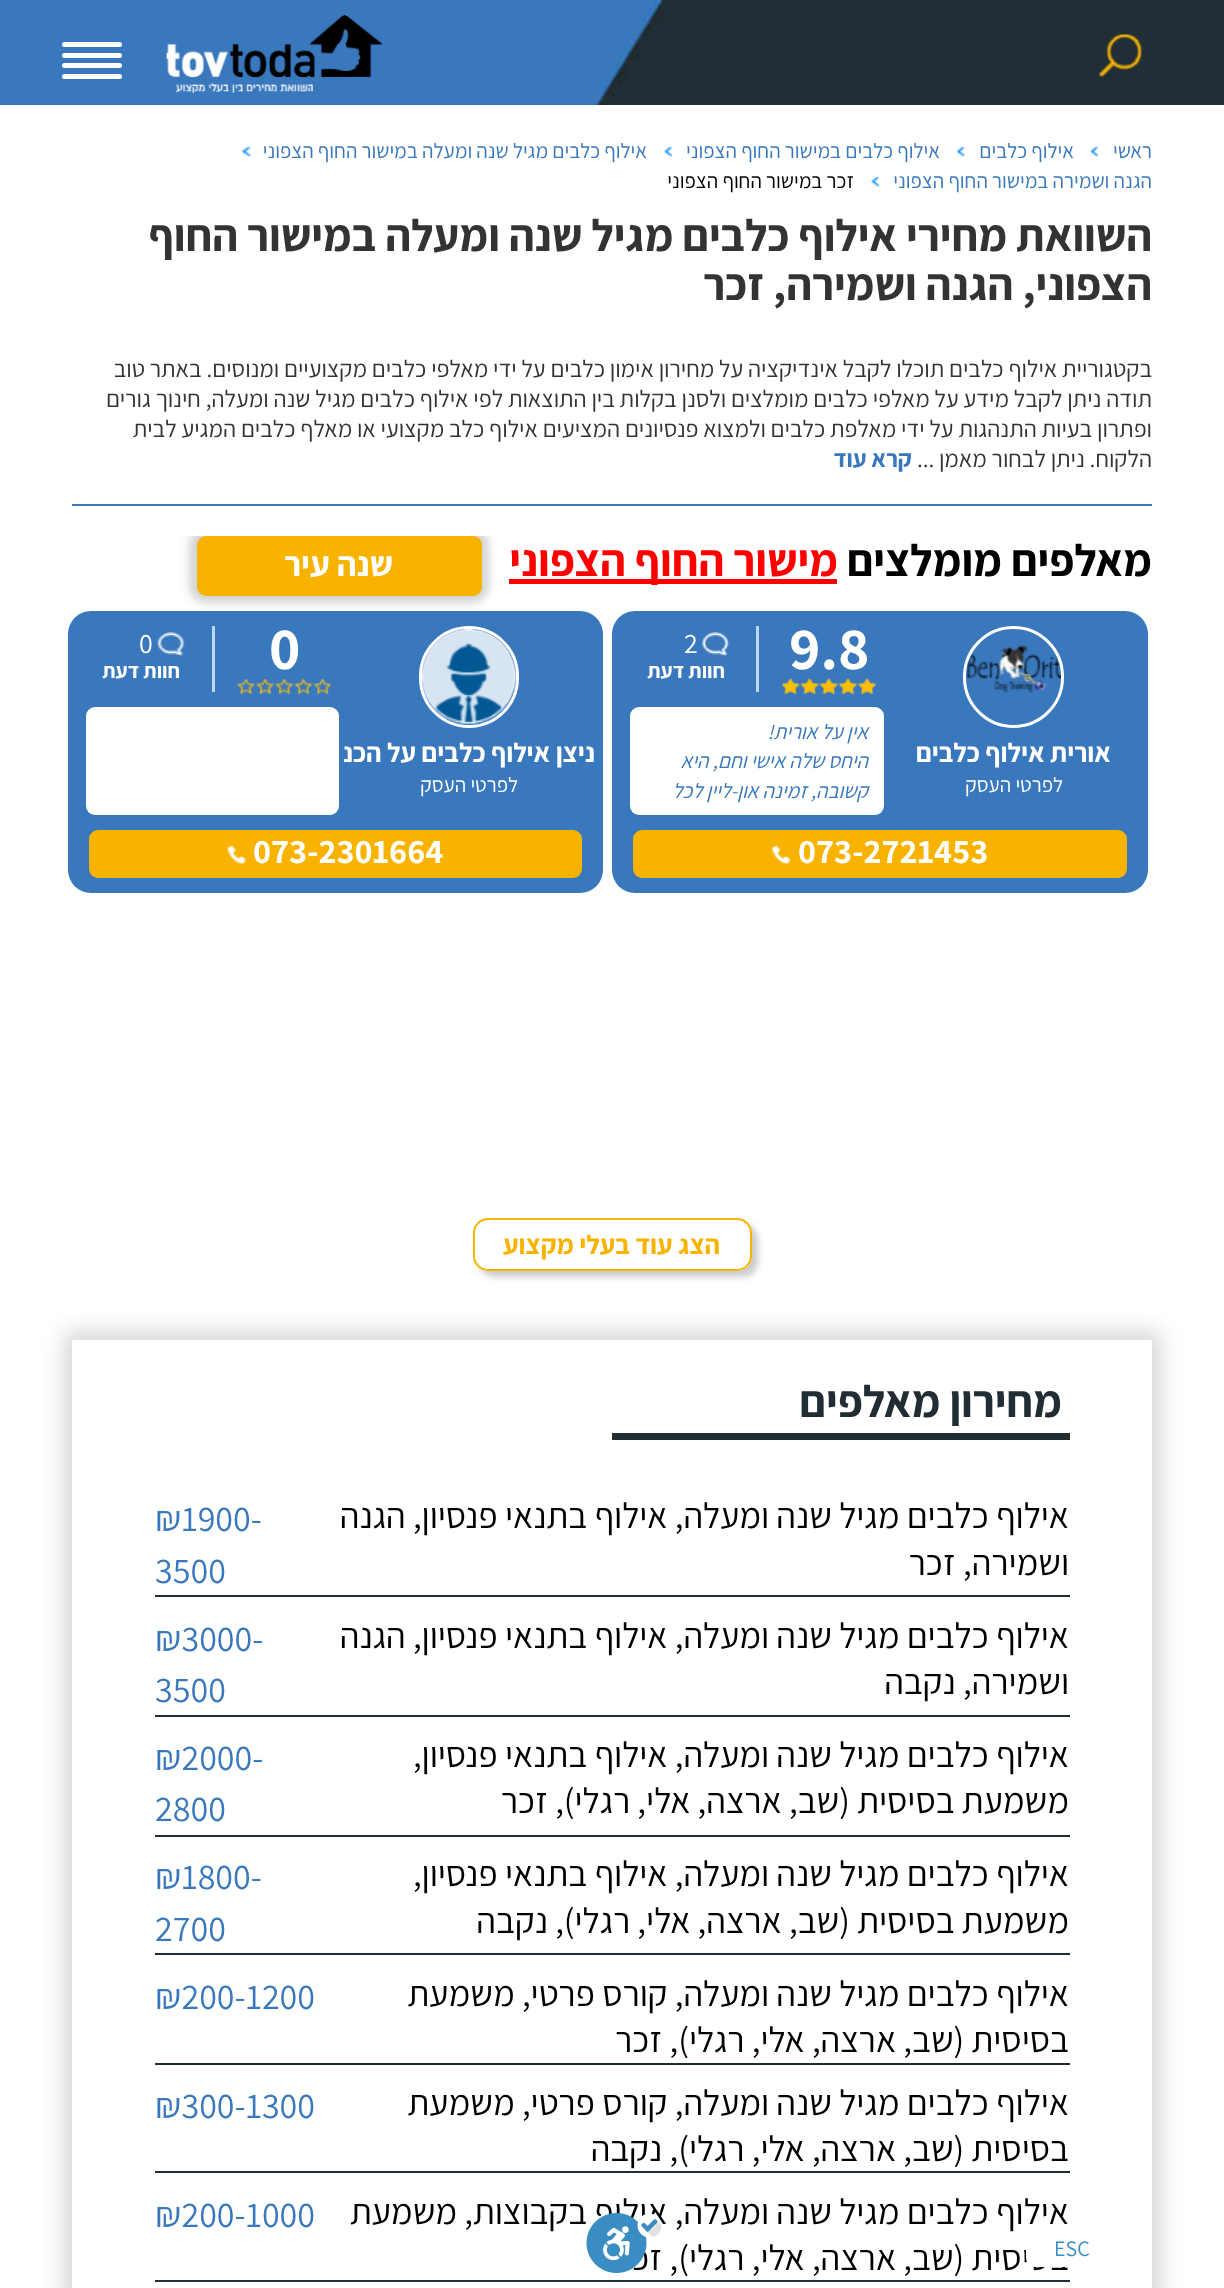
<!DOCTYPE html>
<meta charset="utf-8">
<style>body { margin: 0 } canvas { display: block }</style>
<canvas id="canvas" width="1224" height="2288"></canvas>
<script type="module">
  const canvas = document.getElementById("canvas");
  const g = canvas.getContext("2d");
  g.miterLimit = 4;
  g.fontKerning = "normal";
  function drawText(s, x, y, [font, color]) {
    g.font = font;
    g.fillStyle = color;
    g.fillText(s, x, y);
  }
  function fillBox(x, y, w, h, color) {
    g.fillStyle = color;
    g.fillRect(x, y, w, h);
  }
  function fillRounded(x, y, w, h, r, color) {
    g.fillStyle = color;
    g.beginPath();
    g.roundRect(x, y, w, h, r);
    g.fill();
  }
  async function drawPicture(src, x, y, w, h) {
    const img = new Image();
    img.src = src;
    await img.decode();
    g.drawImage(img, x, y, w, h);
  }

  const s1 = ["21px Assistant", "#3978BD"];
  const s2 = ["21px Assistant", "#000000"];
  const s3 = ["bold 45px Assistant", "#333333"];
  const s4 = ["24px Assistant", "#333333"];
  const s5 = ["bold 24px Assistant", "#3978BD"];
  const s6 = ["bold 45px Assistant", "#000000"];
  const s7 = ["bold 45px Assistant", "#FF0000"];
  const s8 = ["bold 34.5px Assistant", "#FFFFFF"];
  const s9 = ["bold 27px Assistant", "#FFFFFF"];
  const s10 = ["21px Assistant", "#FFFFFF"];
  const s11 = ["bold 60px Assistant", "#FFFFFF"];
  const s12 = ["28px Assistant", "#FFFFFF"];
  const s13 = ["bold 21px Assistant", "#FFFFFF"];
  const s14 = ["italic 21px Assistant", "#3978BD"];
  const s15 = ["bold 27px Assistant", "#F7B300"];
  const s16 = ["bold 45px Assistant", "#202D32"];
  const s17 = ["36px Assistant", "#000000"];
  const s18 = ["36px Assistant", "#3978BD"];
  const s19 = ["22px Assistant", "#3A8DC2"];

  fillBox(0, 0, 1224, 2288, "#FFFFFF");
  fillBox(0, 0, 591, 105, "#3978BD");
  await drawPicture("pic1.png", 591, 0, 633, 105);
  await drawPicture("pic2.png", 1099, 34, 43, 43);
  await drawPicture("pic3.png", 166, 15, 217, 78);
  fillRounded(62, 42, 60, 5, 2.5, "#FFFFFF");
  fillRounded(62, 53, 60, 5, 2.5, "#FFFFFF");
  fillRounded(62, 63, 60, 5, 2.5, "#FFFFFF");
  fillRounded(62, 74, 60, 5, 2.5, "#FFFFFF");
  g.direction = "rtl";
  drawText("ראשי", 1152, 158, s1);
  await drawPicture("pic4.png", 1090, 146, 8, 11);
  drawText("אילוף כלבים", 1074, 158, s1);
  await drawPicture("pic5.png", 956, 146, 9, 11);
  drawText("אילוף כלבים במישור החוף הצפוני", 940, 158, s1);
  await drawPicture("pic6.png", 664, 146, 8, 11);
  drawText("אילוף כלבים מגיל שנה ומעלה במישור החוף הצפוני", 647, 158, s1);
  await drawPicture("pic7.png", 241, 146, 10, 11);
  drawText("הגנה ושמירה במישור החוף הצפוני", 1152, 188, s1);
  await drawPicture("pic6.png", 871, 176, 8, 11);
  drawText("זכר במישור החוף הצפוני", 854, 188, s2);
  drawText("השוואת מחירי אילוף כלבים מגיל שנה ומעלה במישור החוף", 1152, 251, s3);
  drawText("הצפוני, הגנה ושמירה, זכר", 1152, 300, s3);
  drawText("בקטגוריית אילוף כלבים תוכלו לקבל אינדיקציה על מחירון אימון כלבים על ידי מאלפי כלבים מקצועיים ומנוסים. באתר טוב", 1152, 377, s4);
  drawText("תודה ניתן לקבל מידע על מאלפי כלבים מומלצים ולסנן בקלות בין התוצאות לפי אילוף כלבים מגיל שנה ומעלה, חינוך גורים", 1152, 407, s4);
  drawText("ופתרון בעיות התנהגות על ידי מאלפת כלבים ולמצוא פנסיונים המציעים אילוף כלב מקצועי או מאלף כלבים המגיע לבית", 1152, 437, s4);
  drawText("הלקוח. ניתן לבחור מאמן", 1152, 467, s4);
  g.direction = "ltr";
  drawText("...", 917, 467, s4);
  g.direction = "rtl";
  drawText("קרא עוד", 912, 467, s5);
  fillBox(72, 504, 1080, 2, "#3978BD");
  drawText("מאלפים מומלצים", 1152, 576, s6);
  fillBox(509, 579, 328, 5, "#FF0000");
  drawText("מישור החוף הצפוני", 838, 576, s7);
  g.save();
  g.beginPath();
  g.rect(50, 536, 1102, 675);
  g.clip();
  g.fillStyle = "rgba(204, 204, 204, 0.85)";
  g.filter = "blur(4px)";
  g.beginPath();
  g.roundRect(189, 528, 300, 75, 17);
  g.fill();
  g.filter = "none";
  g.restore();
  fillRounded(197, 536, 285, 60, 9, "#F7B300");
  drawText("שנה עיר", 393, 576, s8);
  fillRounded(612, 611, 536, 282, 23, "#3978BD");
  g.beginPath();
  g.roundRect(964.5, 627.5, 98, 99, 49);
  g.strokeStyle = "#FFFFFF";
  g.lineWidth = 3;
  g.stroke();
  await drawPicture("pic8.png", 966, 645, 95, 48);
  drawText("אורית אילוף כלבים", 1111, 762, s9);
  drawText("לפרטי העסק", 1063, 792, s10);
  fillBox(756, 626, 3, 66, "#BED6F0");
  g.direction = "ltr";
  drawText("9.8", 789, 669, s11);
  await drawPicture("pic9.png", 781, 678, 95, 16);
  await drawPicture("pic10.png", 783, 679, 93, 15);
  await drawPicture("pic11.png", 702, 632, 27, 24);
  drawText("2", 684, 653, s12);
  g.direction = "rtl";
  drawText("חוות דעת", 725, 678, s13);
  fillRounded(630, 707, 254, 108, 9, "#FFFFFF");
  drawText("אין על אורית!", 868, 739, s14);
  drawText("היחס שלה אישי וחם, היא", 868, 768, s14);
  drawText("קשובה, זמינה און-ליין לכל", 868, 798, s14);
  fillRounded(633, 830, 494, 48, 9, "#F7B300");
  g.direction = "ltr";
  drawText("073-2721453", 798, 863, s8);
  await drawPicture("pic12.png", 771, 845, 20, 20);
  fillRounded(68, 611, 535, 282, 23, "#3978BD");
  fillBox(212, 626, 3, 66, "#BED6F0");
  drawText("0", 269, 669, s11);
  await drawPicture("pic13.png", 237, 679, 95, 15);
  await drawPicture("pic14.png", 157, 632, 28, 24);
  drawText("0", 139, 653, s12);
  g.direction = "rtl";
  drawText("חוות דעת", 180, 678, s13);
  fillRounded(86, 707, 253, 108, 9, "#FFFFFF");
  g.beginPath();
  g.roundRect(420.5, 627.5, 97, 99, 48.5);
  g.stroke();
  await drawPicture("pic15.png", 422, 629, 94, 95);
  g.save();
  g.beginPath();
  g.rect(344, 738, 252, 30);
  g.clip();
  drawText("ניצן אילוף כלבים על הכנרת", 595, 762, s9);
  g.restore();
  drawText("לפרטי העסק", 518, 792, s10);
  fillRounded(89, 830, 493, 48, 9, "#F7B300");
  g.direction = "ltr";
  drawText("073-2301664", 253, 863, s8);
  await drawPicture("pic16.png", 226, 845, 21, 20);
  g.save();
  g.beginPath();
  g.moveTo(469, 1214);
  g.lineTo(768, 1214);
  g.lineTo(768, 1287);
  g.lineTo(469, 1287);
  g.closePath();
  g.moveTo(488, 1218);
  g.lineTo(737, 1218);
  g.bezierCurveTo(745.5, 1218, 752, 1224.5, 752, 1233);
  g.lineTo(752, 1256);
  g.bezierCurveTo(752, 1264.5, 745.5, 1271, 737, 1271);
  g.lineTo(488, 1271);
  g.bezierCurveTo(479.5, 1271, 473, 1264.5, 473, 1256);
  g.lineTo(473, 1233);
  g.bezierCurveTo(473, 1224.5, 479.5, 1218, 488, 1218);
  g.closePath();
  g.clip("evenodd");
  g.fillStyle = "#CCCCCC";
  g.filter = "blur(3px)";
  g.beginPath();
  g.roundRect(479, 1224, 279, 53, 15);
  g.fill();
  g.filter = "none";
  g.restore();
  g.beginPath();
  g.roundRect(474, 1219, 277, 51, 14);
  g.strokeStyle = "#F7B300";
  g.lineWidth = 2;
  g.stroke();
  g.direction = "rtl";
  drawText("הצג עוד בעלי מקצוע", 720, 1254, s15);
  g.save();
  g.beginPath();
  g.moveTo(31, 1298);
  g.lineTo(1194, 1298);
  g.lineTo(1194, 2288);
  g.lineTo(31, 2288);
  g.closePath();
  g.moveTo(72, 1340);
  g.lineTo(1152, 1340);
  g.lineTo(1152, 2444);
  g.lineTo(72, 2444);
  g.closePath();
  g.clip("evenodd");
  g.fillStyle = "rgba(204, 204, 204, 0.85)";
  g.filter = "blur(11px)";
  g.beginPath();
  g.rect(65, 1332, 1095, 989);
  g.fill();
  g.filter = "none";
  g.restore();
  fillBox(612, 1433, 458, 7, "#202D32");
  drawText("מחירון מאלפים", 1062, 1417, s16);
  fillBox(155, 1595, 915, 2, "#202D32");
  drawText("אילוף כלבים מגיל שנה ומעלה, אילוף בתנאי פנסיון, הגנה", 1069, 1528, s17);
  drawText("ושמירה, זכר", 1069, 1575, s17);
  g.direction = "ltr";
  drawText("₪1900-", 155, 1531, s18);
  drawText("3500", 155, 1583, s18);
  fillBox(155, 1715, 915, 2, "#202D32");
  g.direction = "rtl";
  drawText("אילוף כלבים מגיל שנה ומעלה, אילוף בתנאי פנסיון, הגנה", 1069, 1648, s17);
  drawText("ושמירה, נקבה", 1069, 1694, s17);
  g.direction = "ltr";
  drawText("₪3000-", 155, 1651, s18);
  drawText("3500", 155, 1702, s18);
  fillBox(155, 1835, 915, 2, "#202D32");
  g.direction = "rtl";
  drawText("אילוף כלבים מגיל שנה ומעלה, אילוף בתנאי פנסיון,", 1069, 1767, s17);
  drawText("משמעת בסיסית (שב, ארצה, אלי, רגלי), זכר", 1069, 1813, s17);
  g.direction = "ltr";
  drawText("₪2000-", 155, 1770, s18);
  drawText("2800", 155, 1821, s18);
  fillBox(155, 1953, 915, 2, "#202D32");
  g.direction = "rtl";
  drawText("אילוף כלבים מגיל שנה ומעלה, אילוף בתנאי פנסיון,", 1069, 1886, s17);
  drawText("משמעת בסיסית (שב, ארצה, אלי, רגלי), נקבה", 1069, 1933, s17);
  g.direction = "ltr";
  drawText("₪1800-", 155, 1889, s18);
  drawText("2700", 155, 1941, s18);
  fillBox(155, 2063, 915, 2, "#202D32");
  g.direction = "rtl";
  drawText("אילוף כלבים מגיל שנה ומעלה, קורס פרטי, משמעת", 1069, 2006, s17);
  drawText("בסיסית (שב, ארצה, אלי, רגלי), זכר", 1069, 2052, s17);
  g.direction = "ltr";
  drawText("₪200-1200", 155, 2009, s18);
  fillBox(155, 2171, 915, 2, "#202D32");
  g.direction = "rtl";
  drawText("אילוף כלבים מגיל שנה ומעלה, קורס פרטי, משמעת", 1069, 2115, s17);
  drawText("בסיסית (שב, ארצה, אלי, רגלי), נקבה", 1069, 2161, s17);
  g.direction = "ltr";
  drawText("₪300-1300", 155, 2118, s18);
  fillBox(155, 2280, 915, 2, "#202D32");
  g.direction = "rtl";
  drawText("אילוף כלבים מגיל שנה ומעלה, אילוף בקבוצות, משמעת", 1069, 2224, s17);
  drawText("בסיסית (שב, ארצה, אלי, רגלי), זכר", 1069, 2270, s17);
  g.direction = "ltr";
  drawText("₪200-1000", 155, 2227, s18);
  fillRounded(1026, 2235, 95, 32, 9, "#FFFFFF");
  drawText("ESC", 1054, 2256, s19);
  await drawPicture("pic17.png", 586, 2213, 76, 60);
</script>
